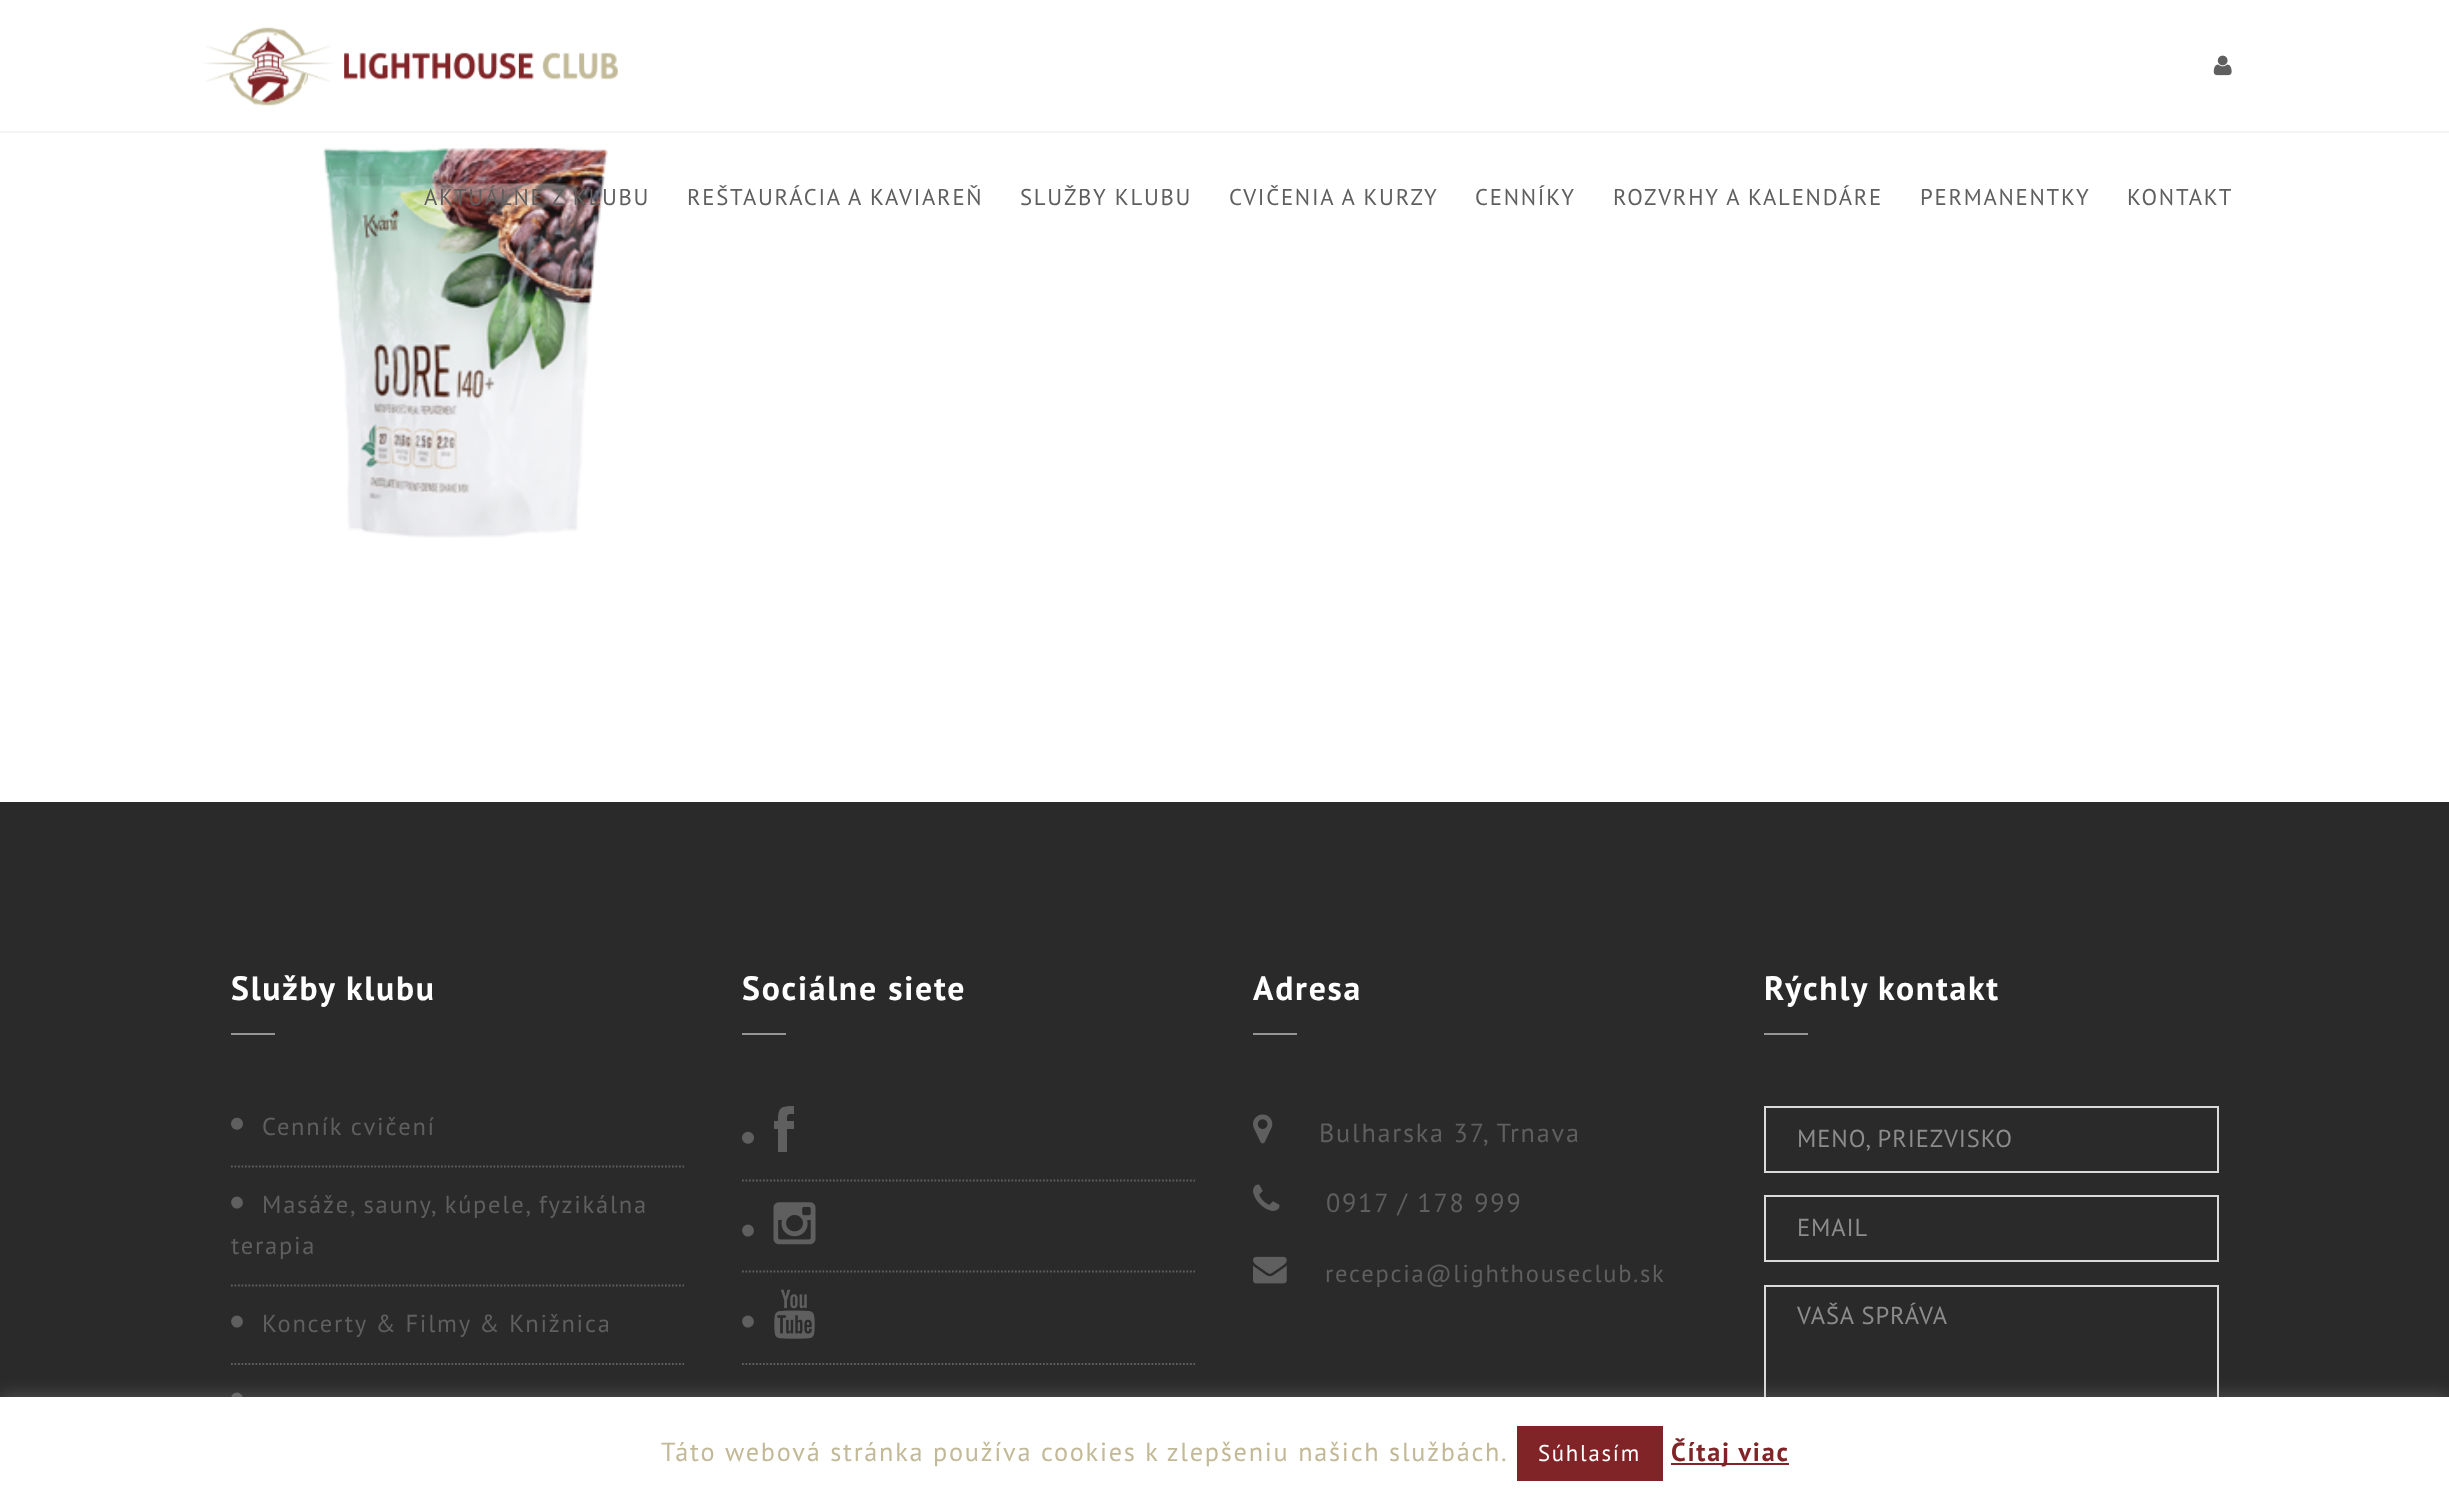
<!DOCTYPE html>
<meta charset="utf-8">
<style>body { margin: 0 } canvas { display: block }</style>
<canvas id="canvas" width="2449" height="1501"></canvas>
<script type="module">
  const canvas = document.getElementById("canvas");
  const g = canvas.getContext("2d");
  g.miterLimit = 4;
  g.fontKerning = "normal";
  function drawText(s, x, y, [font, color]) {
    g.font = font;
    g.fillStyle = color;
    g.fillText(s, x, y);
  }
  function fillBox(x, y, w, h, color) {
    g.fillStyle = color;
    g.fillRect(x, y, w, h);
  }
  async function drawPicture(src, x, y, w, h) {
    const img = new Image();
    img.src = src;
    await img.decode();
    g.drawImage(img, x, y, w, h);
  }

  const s1 = ["22.75px PT Sans", "#5F5F5F"];
  const s2 = ["bold 33.75px PT Sans", "#FFFFFF"];
  const s3 = ["24.5px PT Sans", "#5F5F5F"];
  const s4 = ["26.25px PT Sans", "#5F5F5F"];
  const s5 = ["24.5px PT Sans", "#8C8C8C"];
  const s6 = ["26.25px PT Sans", "#C2B998"];
  const s7 = ["22.75px PT Sans", "#FFFFFF"];
  const s8 = ["bold 26.25px PT Sans", "#812428"];

  fillBox(0, 0, 2449, 1501, "#FFFFFF");
  await drawPicture("pic1.png", 323, 147, 285, 391);
  g.strokeStyle = "#F4F4F4";
  g.lineWidth = 2;
  g.strokeRect(-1, -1, 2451, 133);
  await drawPicture("pic2.png", 203, 27, 415, 79);
  await drawPicture("pic3.png", 2213, 55, 19, 21);
  g.letterSpacing = "1.75px";
  drawText("AKTUÁLNE Z KLUBU", 424, 205, s1);
  drawText("REŠTAURÁCIA A KAVIAREŇ", 687, 205, s1);
  drawText("SLUŽBY KLUBU", 1020, 205, s1);
  drawText("CVIČENIA A KURZY", 1229, 205, s1);
  drawText("CENNÍKY", 1475, 205, s1);
  drawText("ROZVRHY A KALENDÁRE", 1613, 205, s1);
  drawText("PERMANENTKY", 1920, 205, s1);
  drawText("KONTAKT", 2127, 205, s1);
  fillBox(0, 802, 2449, 595, "#2A2A2A");
  drawText("Služby", 231, 1000, s2);
  drawText("klubu", 346, 1000, s2);
  fillBox(231, 1033, 44, 2, "#959595");
  g.beginPath();
  g.moveTo(231, 1166.5);
  g.lineTo(684, 1166.5);
  g.strokeStyle = "#5F5F5F";
  g.lineWidth = 1.8;
  g.setLineDash([1.75, 1.75]);
  g.stroke();
  await drawPicture("pic4.png", 231, 1117, 12, 13);
  drawText("Cenník cvičení", 262, 1135, s3);
  g.beginPath();
  g.moveTo(231, 1285.5);
  g.lineTo(684, 1285.5);
  g.stroke();
  g.beginPath();
  g.moveTo(242, 1199.5);
  g.bezierCurveTo(246, 1206.5, 236, 1212.5, 232, 1205.5);
  g.bezierCurveTo(228, 1198.5, 238, 1192.5, 242, 1199.5);
  g.closePath();
  g.fill();
  drawText("Masáže, sauny, kúpele, fyzikálna", 262, 1213, s3);
  drawText("terapia", 231, 1254, s3);
  g.beginPath();
  g.moveTo(231, 1364);
  g.lineTo(684, 1364);
  g.stroke();
  g.beginPath();
  g.moveTo(242, 1318.5);
  g.bezierCurveTo(246, 1325.5, 236, 1331.5, 232, 1324.5);
  g.bezierCurveTo(228, 1317.5, 238, 1311.5, 242, 1318.5);
  g.closePath();
  g.fill();
  drawText("Koncerty & Filmy & Knižnica", 262, 1332, s3);
  g.beginPath();
  g.moveTo(242, 1395.5);
  g.bezierCurveTo(246, 1402.5, 236, 1408.5, 232, 1401.5);
  g.bezierCurveTo(228, 1394.5, 238, 1388.5, 242, 1395.5);
  g.closePath();
  g.fill();
  drawText("Sociálne siete", 742, 1000, s2);
  fillBox(742, 1033, 44, 2, "#959595");
  g.beginPath();
  g.moveTo(742, 1180.5);
  g.lineTo(1195, 1180.5);
  g.stroke();
  await drawPicture("pic4.png", 742, 1131, 12, 13);
  g.fillStyle = "#5F5F5F";
  g.beginPath();
  g.moveTo(787, 1121);
  g.lineTo(794, 1121);
  g.lineTo(794, 1129);
  g.lineTo(787, 1129);
  g.lineTo(787, 1152);
  g.lineTo(778, 1152);
  g.lineTo(778, 1129);
  g.lineTo(774, 1129);
  g.lineTo(774, 1121);
  g.lineTo(778, 1121);
  g.bezierCurveTo(778, 1107, 781, 1106, 794, 1106);
  g.lineTo(794, 1114);
  g.bezierCurveTo(787, 1114, 787, 1114, 787, 1121);
  g.closePath();
  g.fill();
  g.beginPath();
  g.moveTo(742, 1271.5);
  g.lineTo(1195, 1271.5);
  g.stroke();
  g.beginPath();
  g.moveTo(753, 1227.5);
  g.bezierCurveTo(757, 1234.5, 747, 1240.5, 743, 1233.5);
  g.bezierCurveTo(739, 1226.5, 749, 1220.5, 753, 1227.5);
  g.closePath();
  g.fill();
  await drawPicture("pic5.png", 773, 1202, 43, 43);
  g.beginPath();
  g.moveTo(742, 1364);
  g.lineTo(1195, 1364);
  g.stroke();
  g.beginPath();
  g.moveTo(753, 1318.5);
  g.bezierCurveTo(757, 1325.5, 747, 1331.5, 743, 1324.5);
  g.bezierCurveTo(739, 1317.5, 749, 1311.5, 753, 1318.5);
  g.closePath();
  g.fill();
  await drawPicture("pic6.png", 774, 1289, 41, 50);
  drawText("Adresa", 1253, 1000, s2);
  fillBox(1253, 1033, 44, 2, "#959595");
  await drawPicture("pic7.png", 1253, 1114, 20, 30);
  drawText("Bulharska 37, Trnava", 1319, 1142, s4);
  await drawPicture("pic8.png", 1253, 1184, 27, 27);
  drawText("0917 / 178 999", 1326, 1212, s4);
  await drawPicture("pic9.png", 1253, 1256, 34, 28);
  drawText("recepcia@lighthouseclub.sk", 1325, 1282, s3);
  drawText("Rýchly", 1764, 1000, s2);
  drawText("kontakt", 1878, 1000, s2);
  fillBox(1764, 1033, 44, 2, "#959595");
  g.strokeStyle = "#DBDADA";
  g.lineWidth = 2;
  g.setLineDash([]);
  g.strokeRect(1765, 1107, 453, 65);
  g.letterSpacing = "0.9px";
  drawText("MENO, PRIEZVISKO", 1797, 1147, s5);
  g.strokeRect(1765, 1196, 453, 65);
  drawText("EMAIL", 1797, 1236, s5);
  g.strokeRect(1765, 1286, 453, 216);
  drawText("VAŠA SPRÁVA", 1797, 1324, s5);
  g.fillStyle = "rgba(172, 171, 171, 0.3)";
  g.filter = "blur(9px)";
  g.beginPath();
  g.rect(0, 1395, 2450, 105);
  g.fill();
  g.filter = "none";
  fillBox(0, 1397, 2449, 104, "#FFFFFF");
  g.letterSpacing = "1.75px";
  drawText("Táto webová stránka používa cookies k zlepšeniu našich službách.", 661, 1461, s6);
  fillBox(1517, 1426, 146, 55, "#812428");
  drawText("Súhlasím", 1538, 1461, s7);
  fillBox(1671, 1463, 118, 2, "#812428");
  drawText("Čítaj viac", 1671, 1461, s8);
</script>
